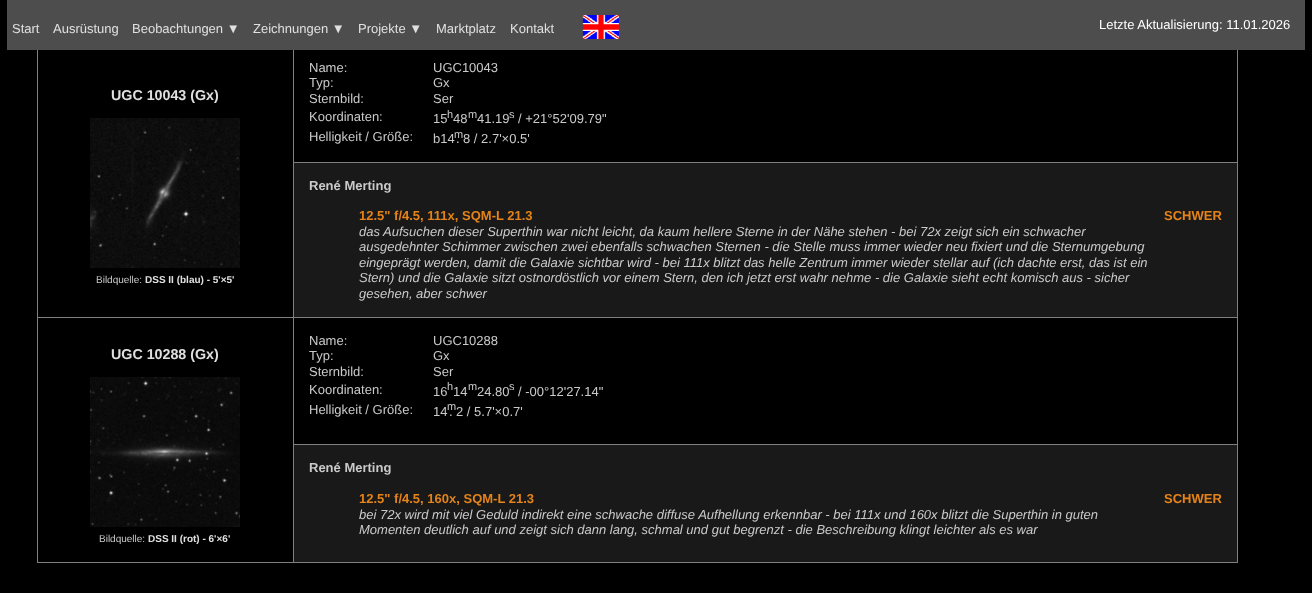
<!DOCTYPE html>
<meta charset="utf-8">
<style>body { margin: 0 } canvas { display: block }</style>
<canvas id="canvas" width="1312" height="593"></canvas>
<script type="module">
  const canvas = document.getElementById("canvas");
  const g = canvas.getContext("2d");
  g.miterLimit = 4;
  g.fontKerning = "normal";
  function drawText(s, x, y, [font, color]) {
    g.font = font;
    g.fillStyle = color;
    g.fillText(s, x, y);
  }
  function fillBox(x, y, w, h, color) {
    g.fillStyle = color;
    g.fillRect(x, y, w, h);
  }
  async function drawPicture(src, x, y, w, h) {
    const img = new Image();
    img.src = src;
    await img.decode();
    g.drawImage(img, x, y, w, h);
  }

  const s1 = ["13px Liberation Sans", "#E0E0E0"];
  const s2 = ["13px Liberation Sans", "#FFFFFF"];
  const s3 = ["bold 14.25px Liberation Sans", "#E0E0E0"];
  const s4 = ["10px Liberation Sans", "#CACACA"];
  const s5 = ["bold 10px Liberation Sans", "#E0E0E0"];
  const s6 = ["13px Liberation Sans", "#CACACA"];
  const s7 = ["11px Liberation Sans", "#CACACA"];
  const s8 = ["bold 13px Liberation Sans", "#CACACA"];
  const s9 = ["bold 13px Liberation Sans", "#E48319"];
  const s10 = ["italic 13px Liberation Sans", "#CACACA"];

  fillBox(0, 0, 1312, 593, "#000000");
  fillBox(1237, 50, 1, 513, "#808080");
  fillBox(293, 162, 945, 1, "#808080");
  fillBox(37, 562, 1201, 1, "#808080");
  fillBox(37, 50, 1, 513, "#808080");
  fillBox(293, 317, 945, 1, "#808080");
  fillBox(293, 444, 945, 1, "#808080");
  fillBox(293, 444, 1, 119, "#808080");
  fillBox(293, 317, 1, 128, "#808080");
  fillBox(37, 317, 257, 1, "#808080");
  fillBox(293, 44, 1, 274, "#808080");
  fillBox(7, 0, 1298, 50, "#4D4D4D");
  drawText("Start", 12, 33, s1);
  drawText("Ausrüstung", 53, 33, s1);
  drawText("Beobachtungen ▼", 132, 33, s1);
  drawText("Zeichnungen ▼", 253, 33, s1);
  drawText("Projekte ▼", 358, 33, s1);
  drawText("Marktplatz", 436, 33, s1);
  drawText("Kontakt", 510, 33, s1);
  await drawPicture("pic1.png", 582, 15, 37, 24);
  drawText("Letzte Aktualisierung: 11.01.2026", 1099, 29, s2);
  drawText("UGC 10043 (Gx)", 111, 100, s3);
  await drawPicture("pic2.png", 90, 118, 150, 150);
  drawText("Bildquelle:", 96, 283, s4);
  drawText("DSS II (blau) - 5'×5'", 145, 283, s5);
  drawText("Name:", 309, 72, s6);
  drawText("UGC10043", 433, 72, s6);
  drawText("Typ:", 309, 87, s6);
  drawText("Gx", 433, 87, s6);
  drawText("Sternbild:", 309, 103, s6);
  drawText("Ser", 433, 103, s6);
  drawText("Koordinaten:", 309, 121, s6);
  drawText("15", 433, 123, s6);
  drawText("h", 447, 118, s7);
  drawText("48", 453, 123, s6);
  drawText("m", 468, 118, s7);
  drawText("41.19", 477, 123, s6);
  drawText("s", 509, 118, s7);
  drawText("/ +21°52'09.79\"", 518, 123, s6);
  drawText("Helligkeit / Größe:", 309, 141, s6);
  drawText("b14", 433, 143, s6);
  drawText("m", 454, 138, s7);
  drawText("8 / 2.7'×0.5'", 463, 143, s6);
  drawText(".", 456, 143, s6);
  fillBox(294, 163, 943, 154, "#191919");
  drawText("René Merting", 309, 190, s8);
  drawText("12.5\" f/4.5, 111x, SQM-L 21.3", 359, 220, s9);
  drawText("das Aufsuchen dieser Superthin war nicht leicht, da kaum hellere Sterne in der Nähe stehen - bei 72x zeigt sich ein schwacher", 359, 236, s10);
  drawText("ausgedehnter Schimmer zwischen zwei ebenfalls schwachen Sternen - die Stelle muss immer wieder neu fixiert und die Sternumgebung", 359, 251, s10);
  drawText("eingeprägt werden, damit die Galaxie sichtbar wird - bei 111x blitzt das helle Zentrum immer wieder stellar auf (ich dachte erst, das ist ein", 359, 267, s10);
  drawText("Stern) und die Galaxie sitzt ostnordöstlich vor einem Stern, den ich jetzt erst wahr nehme - die Galaxie sieht echt komisch aus - sicher", 359, 282, s10);
  drawText("gesehen, aber schwer", 359, 298, s10);
  drawText("SCHWER", 1164, 220, s9);
  drawText("UGC 10288 (Gx)", 111, 359, s3);
  await drawPicture("pic3.png", 90, 377, 150, 150);
  drawText("Bildquelle:", 99, 542, s4);
  drawText("DSS II (rot) - 6'×6'", 148, 542, s5);
  drawText("Name:", 309, 345, s6);
  drawText("UGC10288", 433, 345, s6);
  drawText("Typ:", 309, 360, s6);
  drawText("Gx", 433, 360, s6);
  drawText("Sternbild:", 309, 376, s6);
  drawText("Ser", 433, 376, s6);
  drawText("Koordinaten:", 309, 394, s6);
  drawText("16", 433, 396, s6);
  drawText("h", 447, 390, s7);
  drawText("14", 453, 396, s6);
  drawText("m", 468, 390, s7);
  drawText("24.80", 477, 396, s6);
  drawText("s", 509, 390, s7);
  drawText("/ -00°12'27.14\"", 518, 396, s6);
  drawText("Helligkeit / Größe:", 309, 414, s6);
  drawText("14", 433, 416, s6);
  drawText("m", 447, 410, s7);
  drawText("2 / 5.7'×0.7'", 456, 416, s6);
  drawText(".", 449, 416, s6);
  fillBox(294, 445, 943, 117, "#191919");
  drawText("René Merting", 309, 472, s8);
  drawText("12.5\" f/4.5, 160x, SQM-L 21.3", 359, 503, s9);
  drawText("bei 72x wird mit viel Geduld indirekt eine schwache diffuse Aufhellung erkennbar - bei 111x und 160x blitzt die Superthin in guten", 359, 519, s10);
  drawText("Momenten deutlich auf und zeigt sich dann lang, schmal und gut begrenzt - die Beschreibung klingt leichter als es war", 359, 534, s10);
  drawText("SCHWER", 1164, 503, s9);
</script>
